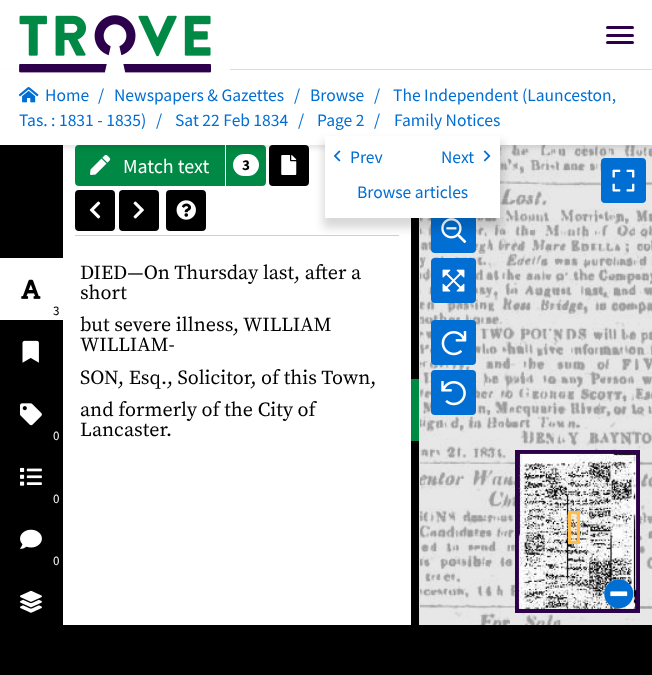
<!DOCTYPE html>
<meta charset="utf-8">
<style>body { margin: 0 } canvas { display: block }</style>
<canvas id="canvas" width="652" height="675"></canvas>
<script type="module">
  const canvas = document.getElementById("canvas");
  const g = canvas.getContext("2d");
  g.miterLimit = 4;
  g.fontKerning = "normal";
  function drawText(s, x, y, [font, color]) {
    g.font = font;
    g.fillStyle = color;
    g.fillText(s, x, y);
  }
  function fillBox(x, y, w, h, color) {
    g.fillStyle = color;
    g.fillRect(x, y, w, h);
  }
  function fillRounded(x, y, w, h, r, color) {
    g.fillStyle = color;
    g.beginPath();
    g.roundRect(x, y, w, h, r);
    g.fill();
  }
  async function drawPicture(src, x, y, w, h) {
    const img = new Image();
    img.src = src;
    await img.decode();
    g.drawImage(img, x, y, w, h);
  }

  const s1 = ["17.5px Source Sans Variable", "#016ED3"];
  const s2 = ["13px Source Sans Variable", "#000000"];
  const s3 = ["13px Source Sans Variable", "#FFFFFF"];
  const s4 = ["20px Source Sans Variable", "#FFFFFF"];
  const s5 = ["bold 15px Source Sans Variable", "#000000"];
  const s6 = ["20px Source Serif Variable", "#000000"];

  fillBox(0, 0, 652, 675, "#FFFFFF");
  fillBox(0, 145, 63, 480, "#000000");
  g.fillStyle = "#008944";
  g.beginPath();
  g.roundRect(76.5, 146.5, 147, 38, [2.5, 0, 0, 2.5]);
  g.fill();
  g.strokeStyle = "#008944";
  g.lineWidth = 3;
  g.stroke();
  await drawPicture("pic11.png", 90, 154, 21, 21);
  g.beginPath();
  g.roundRect(227.5, 146.5, 37, 38, [0, 2.5, 2.5, 0]);
  g.fill();
  g.stroke();
  fillRounded(233, 154, 26, 22, 11, "#FFFFFF");
  g.fillStyle = "#000000";
  g.beginPath();
  g.roundRect(270.5, 146.5, 37, 38, 2.5);
  g.fill();
  g.strokeStyle = "#000000";
  g.stroke();
  await drawPicture("pic12.png", 281, 155, 16, 20);
  await drawPicture("pic16.png", 500, 145, 10, 54);
  await drawPicture("pic17.png", 510, 145, 142, 54);
  await drawPicture("pic18.png", 420, 198, 90, 321);
  await drawPicture("pic19.png", 510, 198, 142, 321);
  fillBox(420, 145, 232, 119, "rgba(221, 221, 221, 0.7)");
  g.fillStyle = "rgba(0, 0, 0, 0.1)";
  g.filter = "blur(2.5px)";
  g.beginPath();
  g.rect(0, 73, 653, 75);
  g.fill();
  g.filter = "none";
  fillBox(230, 69, 422, 1, "#DDDDDD");
  fillBox(0, 70, 652, 75, "#FFFFFF");
  await drawPicture("pic1.png", 19, 15, 192, 58);
  fillRounded(606, 26, 28, 3, 1.5, "#2D004B");
  fillRounded(606, 34, 28, 3, 1.5, "#2D004B");
  fillRounded(606, 41, 28, 3, 1.5, "#2D004B");
  await drawPicture("pic2.png", 18, 87, 21, 16);
  drawText("Home", 45, 101, s1);
  drawText("/", 98, 101, s1);
  drawText("Newspapers & Gazettes", 114, 101, s1);
  drawText("/", 294, 101, s1);
  drawText("Browse", 310, 101, s1);
  drawText("/", 374, 101, s1);
  drawText("The Independent (Launceston,", 393, 101, s1);
  drawText("Tas. : 1831 - 1835)", 19, 126, s1);
  drawText("/", 156, 126, s1);
  drawText("Sat 22 Feb 1834", 175, 126, s1);
  drawText("/", 298, 126, s1);
  drawText("Page 2", 317, 126, s1);
  drawText("/", 374, 126, s1);
  drawText("Family Notices", 394, 126, s1);
  fillBox(75, 235, 324, 1, "#D1D1D1");
  fillBox(411, 218, 8, 407, "#000000");
  fillBox(419, 218, 1, 407, "#E3E3E3");
  g.fillStyle = "#016ED3";
  g.beginPath();
  g.roundRect(432.5, 209.5, 42, 42, 2.5);
  g.fill();
  g.strokeStyle = "#016ED3";
  g.stroke();
  await drawPicture("pic23.png", 441, 218, 26, 26);
  g.fillStyle = "rgba(0, 0, 0, 0.15)";
  g.filter = "blur(4px)";
  g.beginPath();
  g.rect(323, 141, 180, 87);
  g.fill();
  g.filter = "none";
  fillBox(325, 136, 175, 82, "#FFFFFF");
  await drawPicture("pic3.png", 333, 150, 8, 12);
  drawText("Prev", 350, 163, s1);
  drawText("Next", 441, 163, s1);
  await drawPicture("pic4.png", 483, 150, 8, 12);
  drawText("Browse articles", 357, 198, s1);
  fillBox(0, 258, 63, 62, "#FFFFFF");
  await drawPicture("pic5.png", 21, 279, 20, 20);
  drawText("3", 53, 315, s2);
  await drawPicture("pic6.png", 22, 340, 17, 23);
  await drawPicture("pic7.png", 20, 403, 22, 23);
  drawText("0", 53, 440, s3);
  await drawPicture("pic8.png", 20, 467, 22, 19);
  drawText("0", 53, 503, s3);
  await drawPicture("pic9.png", 20, 529, 22, 20);
  drawText("0", 53, 565, s3);
  await drawPicture("pic10.png", 20, 590, 22, 23);
  drawText("Match text", 123, 173, s4);
  drawText("3", 242, 170, s5);
  g.beginPath();
  g.roundRect(76.5, 191.5, 37, 38, 2.5);
  g.fill();
  g.strokeStyle = "#000000";
  g.stroke();
  await drawPicture("pic13.png", 89, 201, 12, 18);
  g.beginPath();
  g.roundRect(120.5, 191.5, 37, 38, 2.5);
  g.fill();
  g.stroke();
  await drawPicture("pic14.png", 133, 201, 11, 18);
  g.beginPath();
  g.roundRect(167.5, 191.5, 37, 38, 2.5);
  g.fill();
  g.stroke();
  await drawPicture("pic15.png", 176, 200, 20, 20);
  drawText("DIED—On Thursday last, after a", 80, 279, s6);
  drawText("short", 80, 299, s6);
  drawText("but severe illness, WILLIAM", 80, 331, s6);
  drawText("WILLIAM-", 80, 351, s6);
  drawText("SON, Esq., Solicitor, of this Town,", 80, 384, s6);
  drawText("and formerly of the City of", 80, 416, s6);
  drawText("Lancaster.", 80, 436, s6);
  fillBox(411, 379, 8, 62, "#008944");
  fillBox(420, 264, 232, 107, "rgba(221, 221, 221, 0.7)");
  await drawPicture("pic20.png", 420, 518, 90, 107);
  await drawPicture("pic21.png", 510, 518, 142, 107);
  fillBox(420, 371, 232, 254, "rgba(221, 221, 221, 0.7)");
  g.fillStyle = "#016ED3";
  g.beginPath();
  g.roundRect(602.5, 159.5, 42, 42, 2.5);
  g.fill();
  g.strokeStyle = "#016ED3";
  g.stroke();
  await drawPicture("pic22.png", 612, 169, 23, 23);
  g.beginPath();
  g.roundRect(432.5, 259.5, 42, 42, 2.5);
  g.fill();
  g.stroke();
  await drawPicture("pic24.png", 442, 269, 23, 23);
  g.beginPath();
  g.roundRect(432.5, 321.5, 42, 42, 2.5);
  g.fill();
  g.stroke();
  await drawPicture("pic25.png", 441, 331, 26, 25);
  g.beginPath();
  g.roundRect(432.5, 371.5, 42, 42, 2.5);
  g.fill();
  g.stroke();
  await drawPicture("pic26.png", 441, 381, 25, 25);
  g.strokeStyle = "#2D004B";
  g.lineWidth = 4;
  g.strokeRect(517, 452, 121, 159);
  await drawPicture("pic27.png", 518, 453, 119, 156);
  g.fillStyle = "rgba(255, 189, 76, 0.1)";
  g.beginPath();
  g.rect(569.5, 512.5, 9, 30);
  g.fill();
  g.strokeStyle = "#FFBD4C";
  g.lineWidth = 3;
  g.stroke();
  fillBox(571, 514, 6, 27, "rgba(255, 189, 76, 0.1)");
  g.fillStyle = "#FFFFFF";
  g.beginPath();
  g.moveTo(608.5, 583.5);
  g.bezierCurveTo(611, 581, 614, 579.5, 617.5, 579.5);
  g.bezierCurveTo(631, 578, 638.5, 594.5, 629, 604);
  g.bezierCurveTo(619.5, 613.5, 603, 606, 604.5, 592.5);
  g.bezierCurveTo(604.5, 589, 606, 586, 608.5, 583.5);
  g.closePath();
  g.fill();
  await drawPicture("pic28.png", 604, 579, 30, 30);
  fillBox(0, 625, 652, 50, "#000000");
</script>
